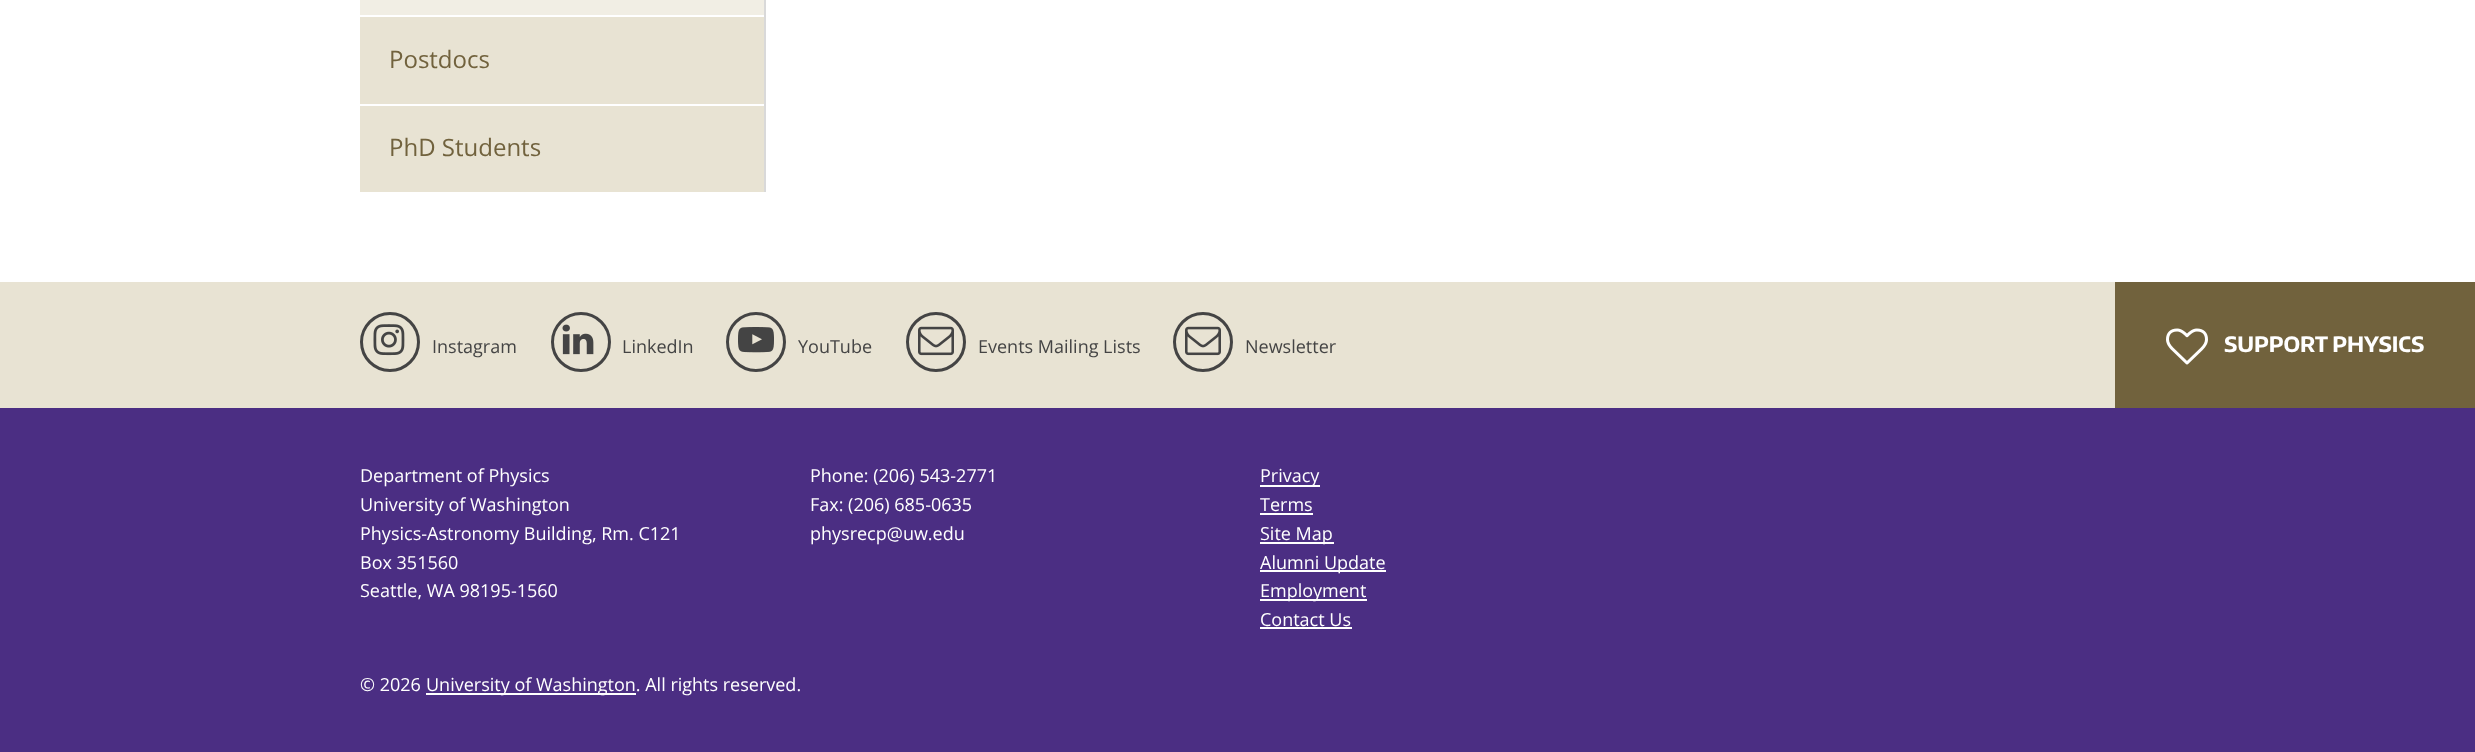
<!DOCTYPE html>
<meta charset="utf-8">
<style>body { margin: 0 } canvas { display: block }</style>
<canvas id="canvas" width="2475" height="752"></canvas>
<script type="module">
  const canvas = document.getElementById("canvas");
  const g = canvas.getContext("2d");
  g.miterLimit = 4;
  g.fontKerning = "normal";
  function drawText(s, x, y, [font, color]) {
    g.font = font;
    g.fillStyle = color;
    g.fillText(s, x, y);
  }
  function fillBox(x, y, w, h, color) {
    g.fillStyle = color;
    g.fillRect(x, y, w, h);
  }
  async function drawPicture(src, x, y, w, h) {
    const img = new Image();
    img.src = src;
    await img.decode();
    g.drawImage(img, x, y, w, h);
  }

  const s1 = ["24px Open Sans", "#71623D"];
  const s2 = ["18px Open Sans", "#444444"];
  const s3 = ["bold 21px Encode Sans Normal", "#FFFFFF"];
  const s4 = ["18px Open Sans", "#FFFFFF"];

  fillBox(0, 0, 2475, 752, "#FFFFFF");
  fillBox(360, 17, 404, 175, "#E8E3D3");
  fillBox(764, 0, 2, 192, "#D9D9D9");
  fillBox(360, 0, 404, 15, "#F1EEE4");
  drawText("Postdocs", 389, 68, s1);
  fillBox(360, 104, 404, 2, "#FFFFFF");
  drawText("PhD Students", 389, 156, s1);
  fillBox(0, 282, 2115, 126, "#E8E3D3");
  g.beginPath();
  g.arc(390, 342, 28.5, 0, Math.PI * 2);
  g.strokeStyle = "#444444";
  g.lineWidth = 3;
  g.stroke();
  await drawPicture("pic1.png", 373, 324, 32, 32);
  drawText("Instagram", 432, 353, s2);
  g.beginPath();
  g.arc(581, 342, 28.5, 0, Math.PI * 2);
  g.stroke();
  await drawPicture("pic2.png", 562, 324, 32, 31);
  drawText("LinkedIn", 622, 353, s2);
  g.beginPath();
  g.arc(756, 342, 28.5, 0, Math.PI * 2);
  g.stroke();
  await drawPicture("pic3.png", 738, 327, 36, 26);
  drawText("YouTube", 798, 353, s2);
  g.beginPath();
  g.arc(936, 342, 28.5, 0, Math.PI * 2);
  g.stroke();
  await drawPicture("pic4.png", 918, 326, 36, 30);
  drawText("Events Mailing Lists", 978, 353, s2);
  g.beginPath();
  g.arc(1203, 342, 28.5, 0, Math.PI * 2);
  g.stroke();
  await drawPicture("pic4.png", 1185, 326, 36, 30);
  drawText("Newsletter", 1245, 353, s2);
  fillBox(2115, 282, 360, 126, "#71623D");
  await drawPicture("pic5.png", 2166, 328, 42, 37);
  drawText("SUPPORT PHYSICS", 2224, 352, s3);
  fillBox(0, 408, 2475, 344, "#4B2E83");
  drawText("Department of Physics", 360, 482, s4);
  drawText("University of Washington", 360, 511, s4);
  drawText("Physics-Astronomy Building, Rm. C121", 360, 540, s4);
  drawText("Box 351560", 360, 569, s4);
  drawText("Seattle, WA 98195-1560", 360, 597, s4);
  drawText("Phone: (206) 543-2771", 810, 482, s4);
  drawText("Fax: (206) 685-0635", 810, 511, s4);
  drawText("physrecp@uw.edu", 810, 540, s4);
  fillBox(1260, 485, 60, 2, "#FFFFFF");
  drawText("Privacy", 1260, 482, s4);
  drawText("Terms", 1260, 511, s4);
  fillBox(1260, 513, 53, 2, "#FFFFFF");
  fillBox(1260, 542, 74, 2, "#FFFFFF");
  drawText("Site Map", 1260, 540, s4);
  fillBox(1260, 570, 126, 2, "#FFFFFF");
  drawText("Alumni Update", 1260, 569, s4);
  fillBox(1260, 599, 107, 2, "#FFFFFF");
  drawText("Employment", 1260, 597, s4);
  drawText("Contact Us", 1260, 626, s4);
  fillBox(1260, 627, 92, 2, "#FFFFFF");
  drawText("© 2026", 360, 691, s4);
  fillBox(426, 693, 210, 2, "#FFFFFF");
  drawText("University of Washington. All rights reserved.", 426, 691, s4);
</script>
